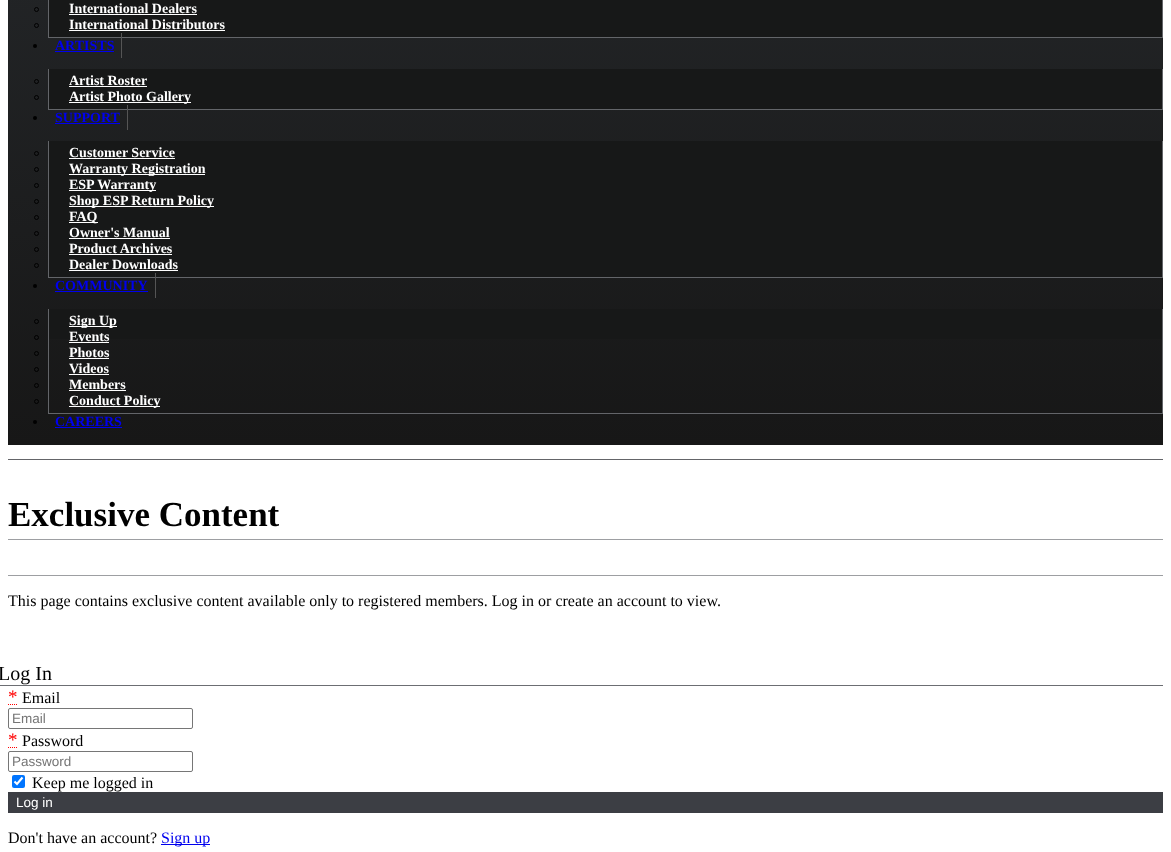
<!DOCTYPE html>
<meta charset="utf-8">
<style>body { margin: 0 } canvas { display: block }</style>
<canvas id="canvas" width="1171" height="852"></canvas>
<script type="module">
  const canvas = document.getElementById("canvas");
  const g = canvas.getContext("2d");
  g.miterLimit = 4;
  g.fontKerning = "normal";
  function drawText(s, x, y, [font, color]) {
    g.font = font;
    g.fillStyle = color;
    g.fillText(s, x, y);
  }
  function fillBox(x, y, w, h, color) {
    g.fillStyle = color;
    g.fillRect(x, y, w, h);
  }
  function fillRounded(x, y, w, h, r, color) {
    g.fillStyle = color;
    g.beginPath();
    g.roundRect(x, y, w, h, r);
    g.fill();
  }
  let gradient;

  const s1 = ["bold 14px Liberation Serif", "#FFFFFF"];
  const s2 = ["bold 14px Liberation Serif", "#0000EE"];
  const s3 = ["bold 35px Liberation Serif", "#000000"];
  const s4 = ["16px Liberation Serif", "#000000"];
  const s5 = ["20px Liberation Serif", "#000000"];
  const s6 = ["19px Liberation Serif", "#FF0000"];
  const s7 = ["13.5px Liberation Sans", "#757575"];
  const s8 = ["13.5px Liberation Sans", "#FFFFFF"];
  const s9 = ["16px Liberation Serif", "#0000EE"];

  fillBox(0, 0, 1171, 852, "#FFFFFF");
  gradient = g.createLinearGradient(585, -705, 586, 445);
  gradient.addColorStop(0, "#32373C");
  gradient.addColorStop(1, "#171717");
  g.fillStyle = gradient;
  g.fillRect(8, 0, 1155, 445);
  fillBox(49, 0, 1113, 37, "#171818");
  fillBox(1162, 0, 1, 38, "#636569");
  fillBox(48, 37, 1115, 1, "#636569");
  fillBox(48, 0, 1, 38, "#636569");
  g.beginPath();
  g.arc(36.5, 9.5, 2, 0, Math.PI * 2);
  g.strokeStyle = "#000000";
  g.stroke();
  drawText("International Dealers", 69, 13, s1);
  fillBox(69, 14, 128, 1, "#FFFFFF");
  g.beginPath();
  g.arc(36.5, 25.5, 2, 0, Math.PI * 2);
  g.stroke();
  drawText("International Distributors", 69, 29, s1);
  fillBox(69, 30, 156, 1, "#FFFFFF");
  g.fillStyle = "#000000";
  g.beginPath();
  g.arc(35, 46, 2, 0, Math.PI * 2);
  g.fill();
  drawText("ARTISTS", 55, 50, s2);
  fillBox(121, 33, 1, 25, "#555555");
  fillBox(55, 51, 59, 1, "#0000EE");
  fillBox(49, 69, 1113, 40, "#171818");
  fillBox(1162, 69, 1, 41, "#636569");
  fillBox(48, 109, 1115, 1, "#636569");
  fillBox(48, 69, 1, 41, "#636569");
  g.beginPath();
  g.arc(36.5, 81.5, 2, 0, Math.PI * 2);
  g.stroke();
  drawText("Artist Roster", 69, 85, s1);
  fillBox(69, 86, 78, 1, "#FFFFFF");
  g.beginPath();
  g.arc(36.5, 97.5, 2, 0, Math.PI * 2);
  g.stroke();
  fillBox(69, 102, 122, 1, "#FFFFFF");
  drawText("Artist Photo Gallery", 69, 101, s1);
  g.fillStyle = "#000000";
  g.beginPath();
  g.arc(35, 118, 2, 0, Math.PI * 2);
  g.fill();
  drawText("SUPPORT", 55, 122, s2);
  fillBox(127, 105, 1, 25, "#555555");
  fillBox(55, 123, 65, 1, "#0000EE");
  fillBox(49, 141, 1113, 136, "#171818");
  fillBox(1162, 141, 1, 137, "#636569");
  fillBox(48, 277, 1115, 1, "#636569");
  fillBox(48, 141, 1, 137, "#636569");
  g.beginPath();
  g.arc(36.5, 153.5, 2, 0, Math.PI * 2);
  g.stroke();
  drawText("Customer Service", 69, 157, s1);
  fillBox(69, 158, 106, 1, "#FFFFFF");
  g.beginPath();
  g.arc(36.5, 169.5, 2, 0, Math.PI * 2);
  g.stroke();
  fillBox(69, 174, 136, 1, "#FFFFFF");
  drawText("Warranty Registration", 69, 173, s1);
  g.beginPath();
  g.arc(36.5, 185.5, 2, 0, Math.PI * 2);
  g.stroke();
  fillBox(69, 190, 87, 1, "#FFFFFF");
  drawText("ESP Warranty", 69, 189, s1);
  g.beginPath();
  g.arc(36.5, 201.5, 2, 0, Math.PI * 2);
  g.stroke();
  fillBox(69, 206, 145, 1, "#FFFFFF");
  drawText("Shop ESP Return Policy", 69, 205, s1);
  g.beginPath();
  g.arc(36.5, 217.5, 2, 0, Math.PI * 2);
  g.stroke();
  fillBox(69, 222, 29, 1, "#FFFFFF");
  drawText("FAQ", 69, 221, s1);
  g.beginPath();
  g.arc(36.5, 233.5, 2, 0, Math.PI * 2);
  g.stroke();
  drawText("Owner's Manual", 69, 237, s1);
  fillBox(69, 238, 101, 1, "#FFFFFF");
  g.beginPath();
  g.arc(36.5, 249.5, 2, 0, Math.PI * 2);
  g.stroke();
  drawText("Product Archives", 69, 253, s1);
  fillBox(69, 254, 103, 1, "#FFFFFF");
  g.beginPath();
  g.arc(36.5, 265.5, 2, 0, Math.PI * 2);
  g.stroke();
  drawText("Dealer Downloads", 69, 269, s1);
  fillBox(69, 270, 109, 1, "#FFFFFF");
  g.fillStyle = "#000000";
  g.beginPath();
  g.arc(35, 286, 2, 0, Math.PI * 2);
  g.fill();
  drawText("COMMUNITY", 55, 290, s2);
  fillBox(155, 273, 1, 25, "#555555");
  fillBox(55, 291, 93, 1, "#0000EE");
  fillBox(49, 309, 1113, 30, "#171818");
  fillBox(1162, 309, 1, 105, "#636569");
  fillBox(48, 413, 1115, 1, "#636569");
  fillBox(48, 309, 1, 105, "#636569");
  g.beginPath();
  g.arc(36.5, 321.5, 2, 0, Math.PI * 2);
  g.stroke();
  fillBox(69, 326, 48, 1, "#FFFFFF");
  drawText("Sign Up", 69, 325, s1);
  g.beginPath();
  g.arc(36.5, 337.5, 2, 0, Math.PI * 2);
  g.stroke();
  drawText("Events", 69, 341, s1);
  fillBox(69, 342, 40, 1, "#FFFFFF");
  g.beginPath();
  g.arc(36.5, 353.5, 2, 0, Math.PI * 2);
  g.stroke();
  drawText("Photos", 69, 357, s1);
  fillBox(69, 358, 40, 1, "#FFFFFF");
  g.beginPath();
  g.arc(36.5, 369.5, 2, 0, Math.PI * 2);
  g.stroke();
  drawText("Videos", 69, 373, s1);
  fillBox(69, 374, 40, 1, "#FFFFFF");
  g.beginPath();
  g.arc(36.5, 385.5, 2, 0, Math.PI * 2);
  g.stroke();
  drawText("Members", 69, 389, s1);
  fillBox(69, 390, 57, 1, "#FFFFFF");
  g.beginPath();
  g.arc(36.5, 401.5, 2, 0, Math.PI * 2);
  g.stroke();
  fillBox(69, 406, 91, 1, "#FFFFFF");
  drawText("Conduct Policy", 69, 405, s1);
  g.fillStyle = "#000000";
  g.beginPath();
  g.arc(35, 422, 2, 0, Math.PI * 2);
  g.fill();
  drawText("CAREERS", 55, 426, s2);
  fillBox(55, 427, 67, 1, "#0000EE");
  fillBox(8, 459, 1155, 1, "#646569");
  fillBox(8, 539, 1155, 1, "#9D9FA2");
  drawText("Exclusive Content", 8, 526, s3);
  fillBox(8, 575, 1155, 1, "#9D9FA2");
  drawText("This page contains exclusive content available only to registered members. Log in or create an account to view.", 8, 606, s4);
  fillBox(0, 685, 1163, 1, "#6C6E73");
  drawText("Log In", -2, 680, s5);
  drawText("*", 8, 703, s6);
  drawText("Email", 22, 703, s4);
  g.beginPath();
  g.moveTo(8, 704.5);
  g.lineTo(17.5, 704.5);
  g.strokeStyle = "#FF0000";
  g.setLineDash([1, 1]);
  g.stroke();
  g.beginPath();
  g.roundRect(8.5, 708.5, 184, 20, 1.5);
  g.strokeStyle = "#767676";
  g.setLineDash([]);
  g.stroke();
  drawText("Email", 12, 723, s7);
  drawText("*", 8, 746, s6);
  drawText("Password", 22, 746, s4);
  g.beginPath();
  g.moveTo(8, 747.5);
  g.lineTo(17.5, 747.5);
  g.strokeStyle = "#FF0000";
  g.setLineDash([1, 1]);
  g.stroke();
  g.beginPath();
  g.roundRect(8.5, 751.5, 184, 20, 1.5);
  g.strokeStyle = "#767676";
  g.setLineDash([]);
  g.stroke();
  drawText("Password", 12, 766, s7);
  fillRounded(12, 775, 13, 13, 2, "#0075FF");
  g.beginPath();
  g.moveTo(14.5, 781.5);
  g.lineTo(17, 784);
  g.lineTo(22.5, 777.5);
  g.strokeStyle = "#FFFFFF";
  g.lineWidth = 2.1;
  g.stroke();
  drawText("Keep me logged in", 32, 788, s4);
  fillBox(8, 792, 1155, 21, "#3C3E44");
  drawText("Log in", 16, 807, s8);
  drawText("Don't have an account?", 8, 843, s4);
  fillBox(161, 844, 49, 1, "#0000EE");
  drawText("Sign up", 161, 843, s9);
</script>
